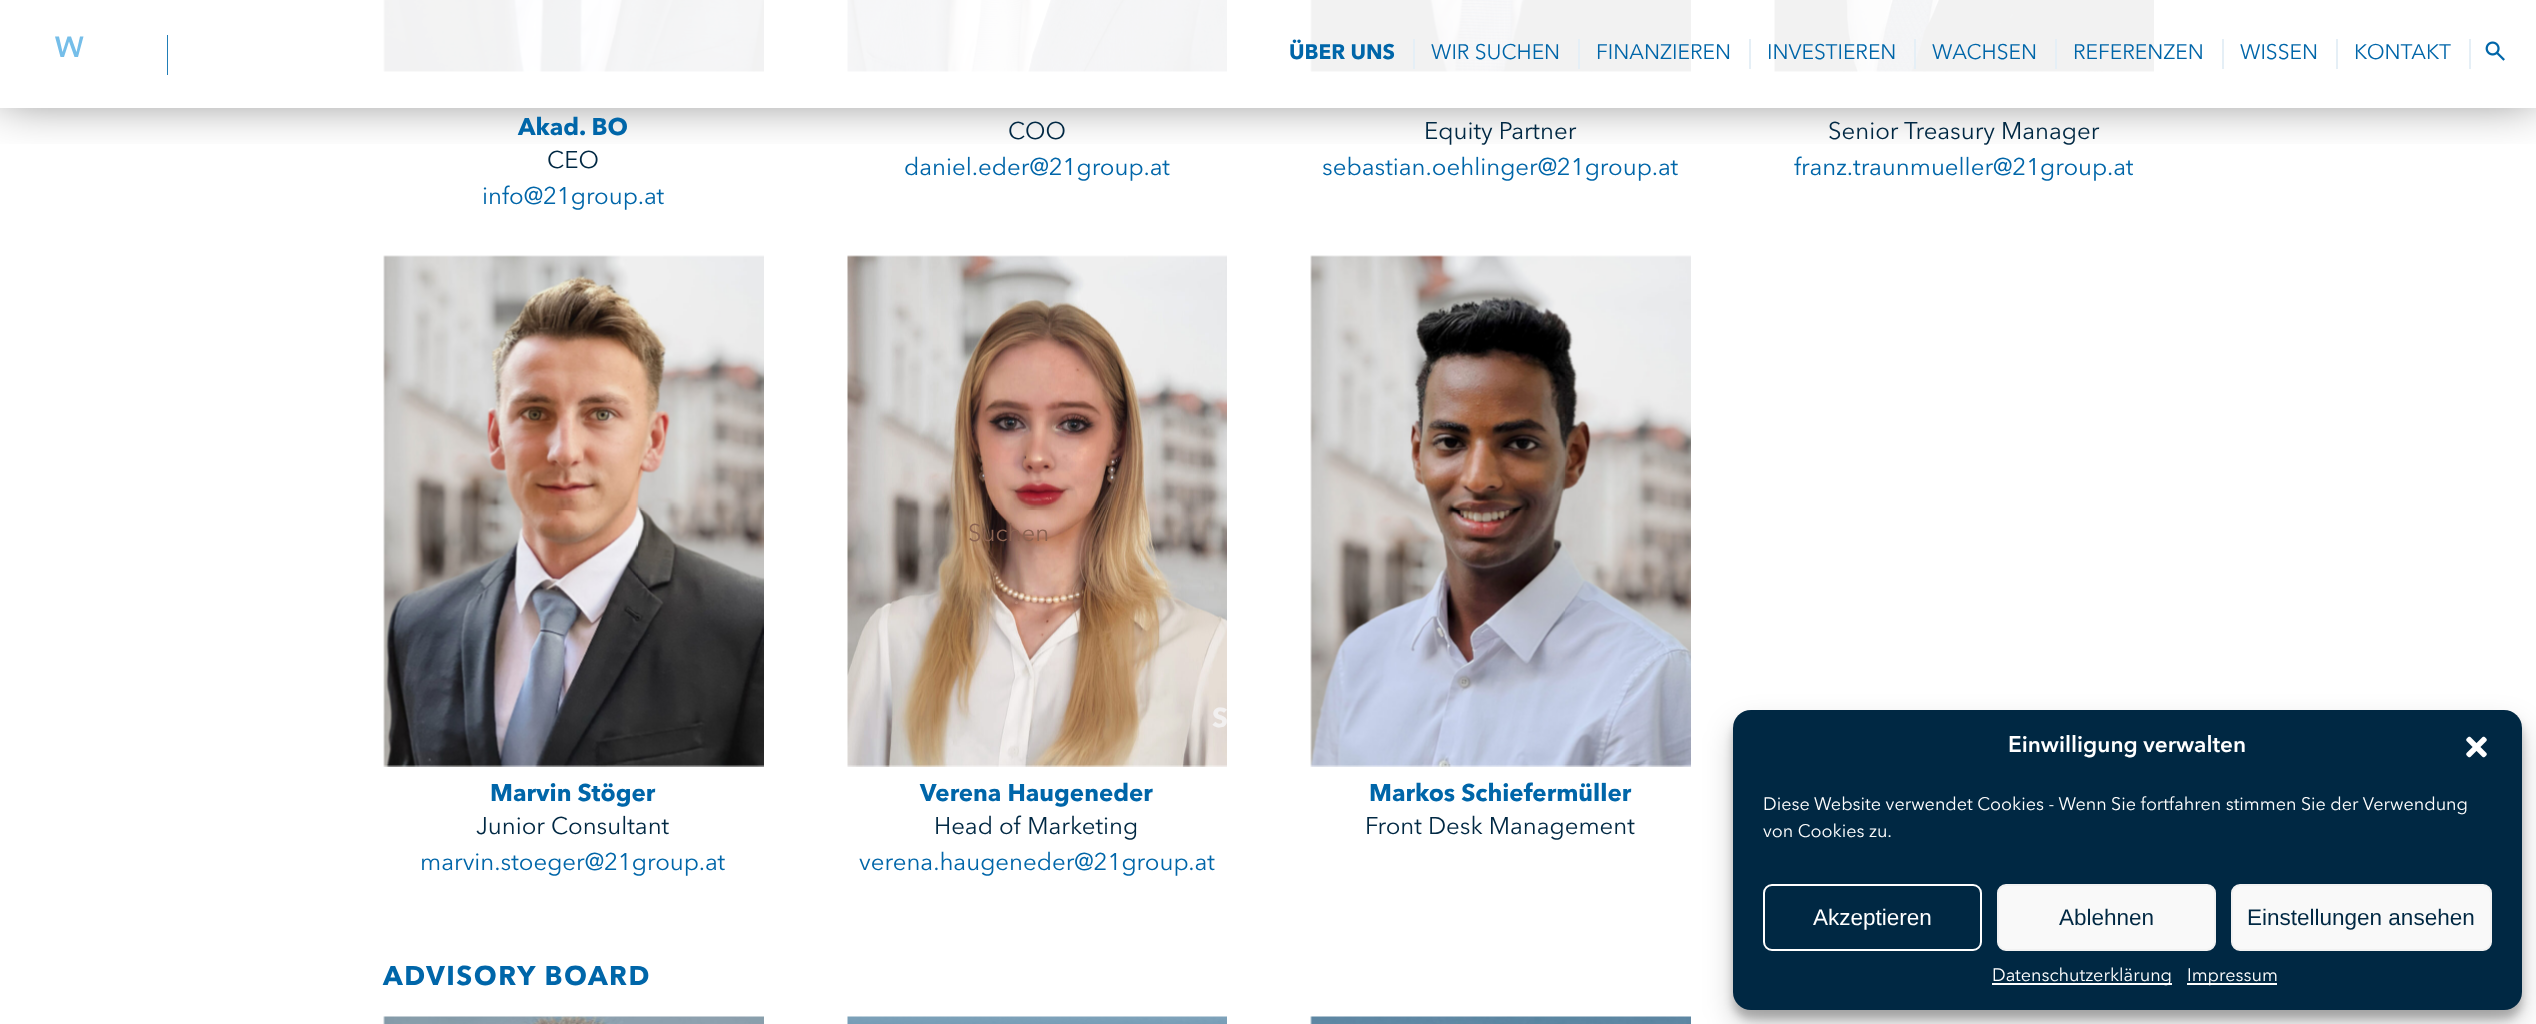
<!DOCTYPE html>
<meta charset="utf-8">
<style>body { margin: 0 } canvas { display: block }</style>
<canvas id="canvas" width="2536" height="1024"></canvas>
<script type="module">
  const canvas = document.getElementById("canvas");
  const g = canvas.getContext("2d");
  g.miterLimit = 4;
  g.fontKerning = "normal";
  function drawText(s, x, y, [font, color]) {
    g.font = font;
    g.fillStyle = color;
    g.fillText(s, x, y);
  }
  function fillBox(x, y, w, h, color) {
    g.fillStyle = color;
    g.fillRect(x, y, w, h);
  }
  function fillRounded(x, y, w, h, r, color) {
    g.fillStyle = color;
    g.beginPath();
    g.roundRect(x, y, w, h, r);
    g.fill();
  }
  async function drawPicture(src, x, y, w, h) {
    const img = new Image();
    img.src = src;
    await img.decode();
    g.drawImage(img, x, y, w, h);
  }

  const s1 = ["bold 21px Avenir Next", "#0066A9"];
  const s2 = ["21px Avenir Next", "#0066A9"];
  const s3 = ["bold 24px Avenir Next", "#0066A9"];
  const s4 = ["24px Avenir Next", "#002843"];
  const s5 = ["24px Avenir Next", "#0066A9"];
  const s6 = ["bold 27px Avenir Next", "#0066A9"];
  const s7 = ["24px Avenir Next", "#8B6352"];
  const s8 = ["27px Avenir Next", "#B98876"];
  const s9 = ["bold 27px Avenir Next", "#F2F0F0"];
  const s10 = ["600 22.5px Avenir Next", "#FFFFFF"];
  const s11 = ["18px Avenir Next", "#FFFFFF"];
  const s12 = ["22.5px Liberation Sans", "#FFFFFF"];
  const s13 = ["22.5px Liberation Sans", "#002843"];

  fillBox(0, 0, 2536, 1024, "#FFFFFF");
  await drawPicture("pic2.png", 383, 0, 381, 72);
  await drawPicture("pic3.png", 847, 0, 380, 72);
  await drawPicture("pic4.png", 1310, 0, 381, 72);
  await drawPicture("pic5.png", 1774, 0, 380, 72);
  g.save();
  g.beginPath();
  g.rect(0, 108, 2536, 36);
  g.clip();
  g.fillStyle = "rgba(0, 0, 0, 0.54)";
  g.filter = "blur(25px)";
  g.beginPath();
  g.rect(0, -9, 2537, 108);
  g.fill();
  g.filter = "none";
  g.restore();
  fillBox(383, 0, 1771, 72, "rgba(255, 255, 255, 0.95)");
  g.fillStyle = "#75BEE9";
  g.beginPath();
  g.moveTo(55, 36.5);
  g.lineTo(59, 36.5);
  g.lineTo(62.5, 52);
  g.lineTo(67.5, 36.5);
  g.lineTo(71, 36.5);
  g.lineTo(76.5, 52);
  g.lineTo(80, 36.5);
  g.lineTo(83.5, 36.5);
  g.lineTo(78, 57);
  g.lineTo(74.5, 57);
  g.lineTo(69, 41.5);
  g.lineTo(64, 57);
  g.lineTo(60.5, 57);
  g.closePath();
  g.fill();
  fillBox(167, 35, 1, 40, "#217EB7");
  drawText("ÜBER UNS", 1289, 59, s1);
  fillBox(1413, 39, 2, 30, "#E5EFF6");
  drawText("WIR SUCHEN", 1431, 59, s2);
  fillBox(1578, 39, 2, 30, "#E5EFF6");
  drawText("FINANZIEREN", 1596, 59, s2);
  fillBox(1749, 39, 2, 30, "#E5EFF6");
  drawText("INVESTIEREN", 1767, 59, s2);
  fillBox(1914, 39, 2, 30, "#E5EFF6");
  drawText("WACHSEN", 1932, 59, s2);
  fillBox(2055, 39, 2, 30, "#E5EFF6");
  drawText("REFERENZEN", 2073, 59, s2);
  fillBox(2222, 39, 2, 30, "#E5EFF6");
  drawText("WISSEN", 2240, 59, s2);
  fillBox(2336, 39, 2, 30, "#E5EFF6");
  drawText("KONTAKT", 2354, 59, s2);
  fillBox(2469, 39, 2, 30, "#E5EFF6");
  await drawPicture("pic1.png", 2485, 41, 20, 20);
  drawText("Akad. BO", 518, 135, s3);
  drawText("CEO", 547, 168, s4);
  drawText("info@21group.at", 482, 204, s5);
  drawText("COO", 1008, 139, s4);
  drawText("daniel.eder@21group.at", 904, 175, s5);
  drawText("Equity Partner", 1424, 139, s4);
  drawText("sebastian.oehlinger@21group.at", 1322, 175, s5);
  drawText("Senior Treasury Manager", 1828, 139, s4);
  drawText("franz.traunmueller@21group.at", 1794, 175, s5);
  await drawPicture("pic6.png", 383, 255, 381, 512);
  drawText("Marvin Stöger", 490, 801, s3);
  drawText("Junior Consultant", 476, 834, s4);
  drawText("marvin.stoeger@21group.at", 420, 870, s5);
  await drawPicture("pic7.png", 847, 255, 380, 512);
  drawText("Verena Haugeneder", 920, 801, s3);
  drawText("Head of Marketing", 934, 834, s4);
  drawText("verena.haugeneder@21group.at", 859, 870, s5);
  await drawPicture("pic8.png", 1310, 255, 381, 512);
  drawText("Markos Schiefermüller", 1369, 801, s3);
  drawText("Front Desk Management", 1365, 834, s4);
  g.letterSpacing = "1.5px";
  drawText("ADVISORY BOARD", 383, 985, s6);
  await drawPicture("pic9.png", 383, 1016, 381, 8);
  await drawPicture("pic10.png", 847, 1016, 380, 8);
  await drawPicture("pic11.png", 1310, 1016, 381, 8);
  g.letterSpacing = "0px";
  drawText("Suchen", 968, 541, s7);
  drawText(".", 1013, 604, s8);
  drawText("S", 1212, 727, s9);
  g.fillStyle = "rgba(0, 0, 0, 0.23)";
  g.filter = "blur(4.5px)";
  g.beginPath();
  g.roundRect(1733, 719, 789, 300, 18);
  g.fill();
  g.filter = "none";
  g.fillStyle = "rgba(0, 0, 0, 0.19)";
  g.filter = "blur(15px)";
  g.beginPath();
  g.roundRect(1733, 725, 789, 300, 18);
  g.fill();
  g.filter = "none";
  fillRounded(1733, 710, 789, 300, 18, "#002843");
  drawText("Einwilligung verwalten", 2008, 752, s10);
  await drawPicture("pic12.png", 2466, 736, 21, 22);
  drawText("Diese Website verwendet Cookies - Wenn Sie fortfahren stimmen Sie der Verwendung", 1763, 810, s11);
  drawText("von Cookies zu.", 1763, 837, s11);
  g.beginPath();
  g.roundRect(1764, 885, 217, 65, 8);
  g.strokeStyle = "#FFFFFF";
  g.lineWidth = 2;
  g.stroke();
  drawText("Akzeptieren", 1813, 925, s12);
  g.fillStyle = "#F9F9F9";
  g.beginPath();
  g.roundRect(1998, 885, 217, 65, 8);
  g.fill();
  g.strokeStyle = "#F2F2F2";
  g.stroke();
  drawText("Ablehnen", 2059, 925, s13);
  g.fillStyle = "#F9F9F9";
  g.beginPath();
  g.roundRect(2232, 885, 259, 65, 8);
  g.fill();
  g.stroke();
  drawText("Einstellungen ansehen", 2247, 925, s13);
  fillBox(1992, 983, 180, 2, "#FFFFFF");
  drawText("Datenschutzerklärung", 1992, 981, s11);
  fillBox(2187, 983, 90, 2, "#FFFFFF");
  drawText("Impressum", 2187, 981, s11);
</script>
